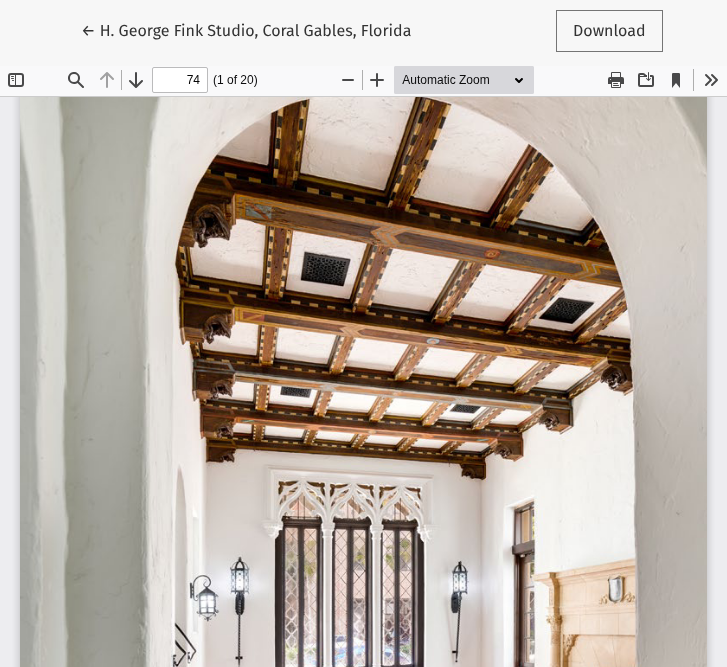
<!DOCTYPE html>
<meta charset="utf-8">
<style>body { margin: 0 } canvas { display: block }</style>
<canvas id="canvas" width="727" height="667"></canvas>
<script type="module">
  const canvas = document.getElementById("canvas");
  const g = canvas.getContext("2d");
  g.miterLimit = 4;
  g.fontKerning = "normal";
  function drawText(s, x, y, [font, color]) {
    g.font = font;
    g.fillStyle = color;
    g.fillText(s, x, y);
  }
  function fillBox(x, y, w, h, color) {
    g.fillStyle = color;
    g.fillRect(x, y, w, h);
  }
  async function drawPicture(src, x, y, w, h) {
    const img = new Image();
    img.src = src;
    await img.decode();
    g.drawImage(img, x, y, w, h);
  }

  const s1 = ["16px Fira Sans", "#333333"];

  fillBox(0, 0, 727, 667, "#F7F7F7");
  drawText("← H. George Fink Studio, Coral Gables, Florida", 81, 36, s1);
  g.strokeStyle = "#757575";
  g.strokeRect(556.5, 10.5, 106, 41);
  drawText("Download", 573, 36, s1);
  await drawPicture("pic1.png", 0, 66, 727, 601);
</script>
